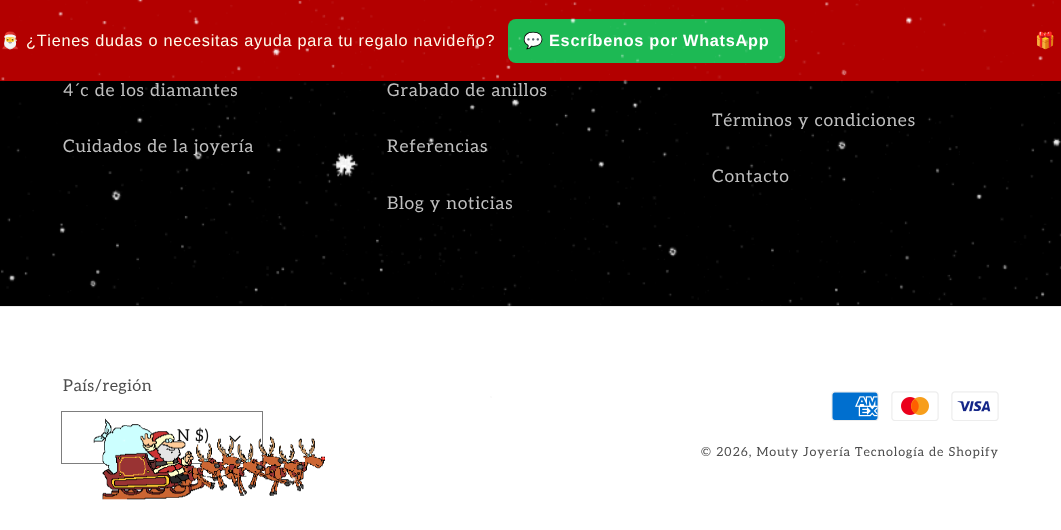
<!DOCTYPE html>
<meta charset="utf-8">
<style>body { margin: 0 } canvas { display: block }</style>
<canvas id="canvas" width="1061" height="530"></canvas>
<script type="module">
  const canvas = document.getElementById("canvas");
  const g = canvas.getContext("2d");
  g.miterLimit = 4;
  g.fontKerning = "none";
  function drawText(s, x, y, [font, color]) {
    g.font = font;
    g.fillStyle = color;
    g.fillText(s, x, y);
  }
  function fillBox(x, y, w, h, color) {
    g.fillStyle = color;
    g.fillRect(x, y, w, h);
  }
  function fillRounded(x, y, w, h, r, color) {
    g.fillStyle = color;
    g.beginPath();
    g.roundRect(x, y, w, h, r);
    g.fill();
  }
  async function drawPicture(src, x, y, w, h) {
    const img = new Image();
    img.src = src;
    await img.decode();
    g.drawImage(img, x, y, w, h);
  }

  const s1 = ["16.25px Aleo", "#121212"];
  const s2 = ["16.25px Noto Color Emoji", "#FFFBEA"];
  const s3 = ["16.25px Liberation Sans", "#FFFBEA"];
  const s4 = ["bold 16.25px Noto Color Emoji", "#FFFFFF"];
  const s5 = ["bold 16.25px Liberation Sans", "#FFFFFF"];
  const s6 = ["17.5px Aleo", "#BFBFBF"];
  const s7 = ["16.25px Aleo", "#4D4D4D"];
  const s8 = ["12.5px Aleo", "#4D4D4D"];

  fillBox(0, 0, 1061, 530, "#FFFFFF");
  g.strokeStyle = "#7D7D7D";
  g.strokeRect(61.5, 411.5, 201, 52);
  g.letterSpacing = "0.5px";
  drawText("N $)", 177, 441, s1);
  await drawPicture("pic3.png", 229, 435, 12, 7);
  await drawPicture("pic2.png", 93, 418, 232, 82);
  fillBox(0, 81, 1061, 225, "#000000");
  g.fillStyle = "rgba(0, 0, 0, 0.25)";
  g.filter = "blur(6px)";
  g.beginPath();
  g.rect(0, 3, 1061, 81);
  g.fill();
  g.filter = "none";
  fillBox(0, 0, 1061, 81, "#B30000");
  g.letterSpacing = "0.75px";
  drawText("🎅", 0, 46, s2);
  drawText("¿Tienes dudas o necesitas ayuda para tu regalo navideño?", 26, 46, s3);
  fillRounded(508, 19, 277, 44, 8, "#1DB954");
  drawText("💬", 523, 46, s4);
  drawText("Escríbenos por WhatsApp", 549, 46, s5);
  drawText("🎁", 1035, 46, s2);
  drawText("4´c de los diamantes", 63, 96, s6);
  drawText("Cuidados de la joyería", 63, 152, s6);
  drawText("Grabado de anillos", 387, 96, s6);
  drawText("Referencias", 387, 152, s6);
  drawText("Blog y noticias", 387, 209, s6);
  drawText("Términos y condiciones", 712, 126, s6);
  drawText("Contacto", 712, 182, s6);
  fillBox(0, 306, 1061, 1, "#ECECEC");
  g.letterSpacing = "0.5px";
  drawText("País/región", 63, 391, s7);
  await drawPicture("pic4.png", 831, 391, 48, 30);
  await drawPicture("pic5.png", 891, 391, 48, 30);
  await drawPicture("pic6.png", 951, 391, 48, 30);
  g.letterSpacing = "0.9px";
  drawText("© 2026, Mouty Joyería", 701, 456, s8);
  drawText("Tecnología de Shopify", 855, 456, s8);
  await drawPicture("pic1.png", 1, 0, 1060, 484);
</script>
